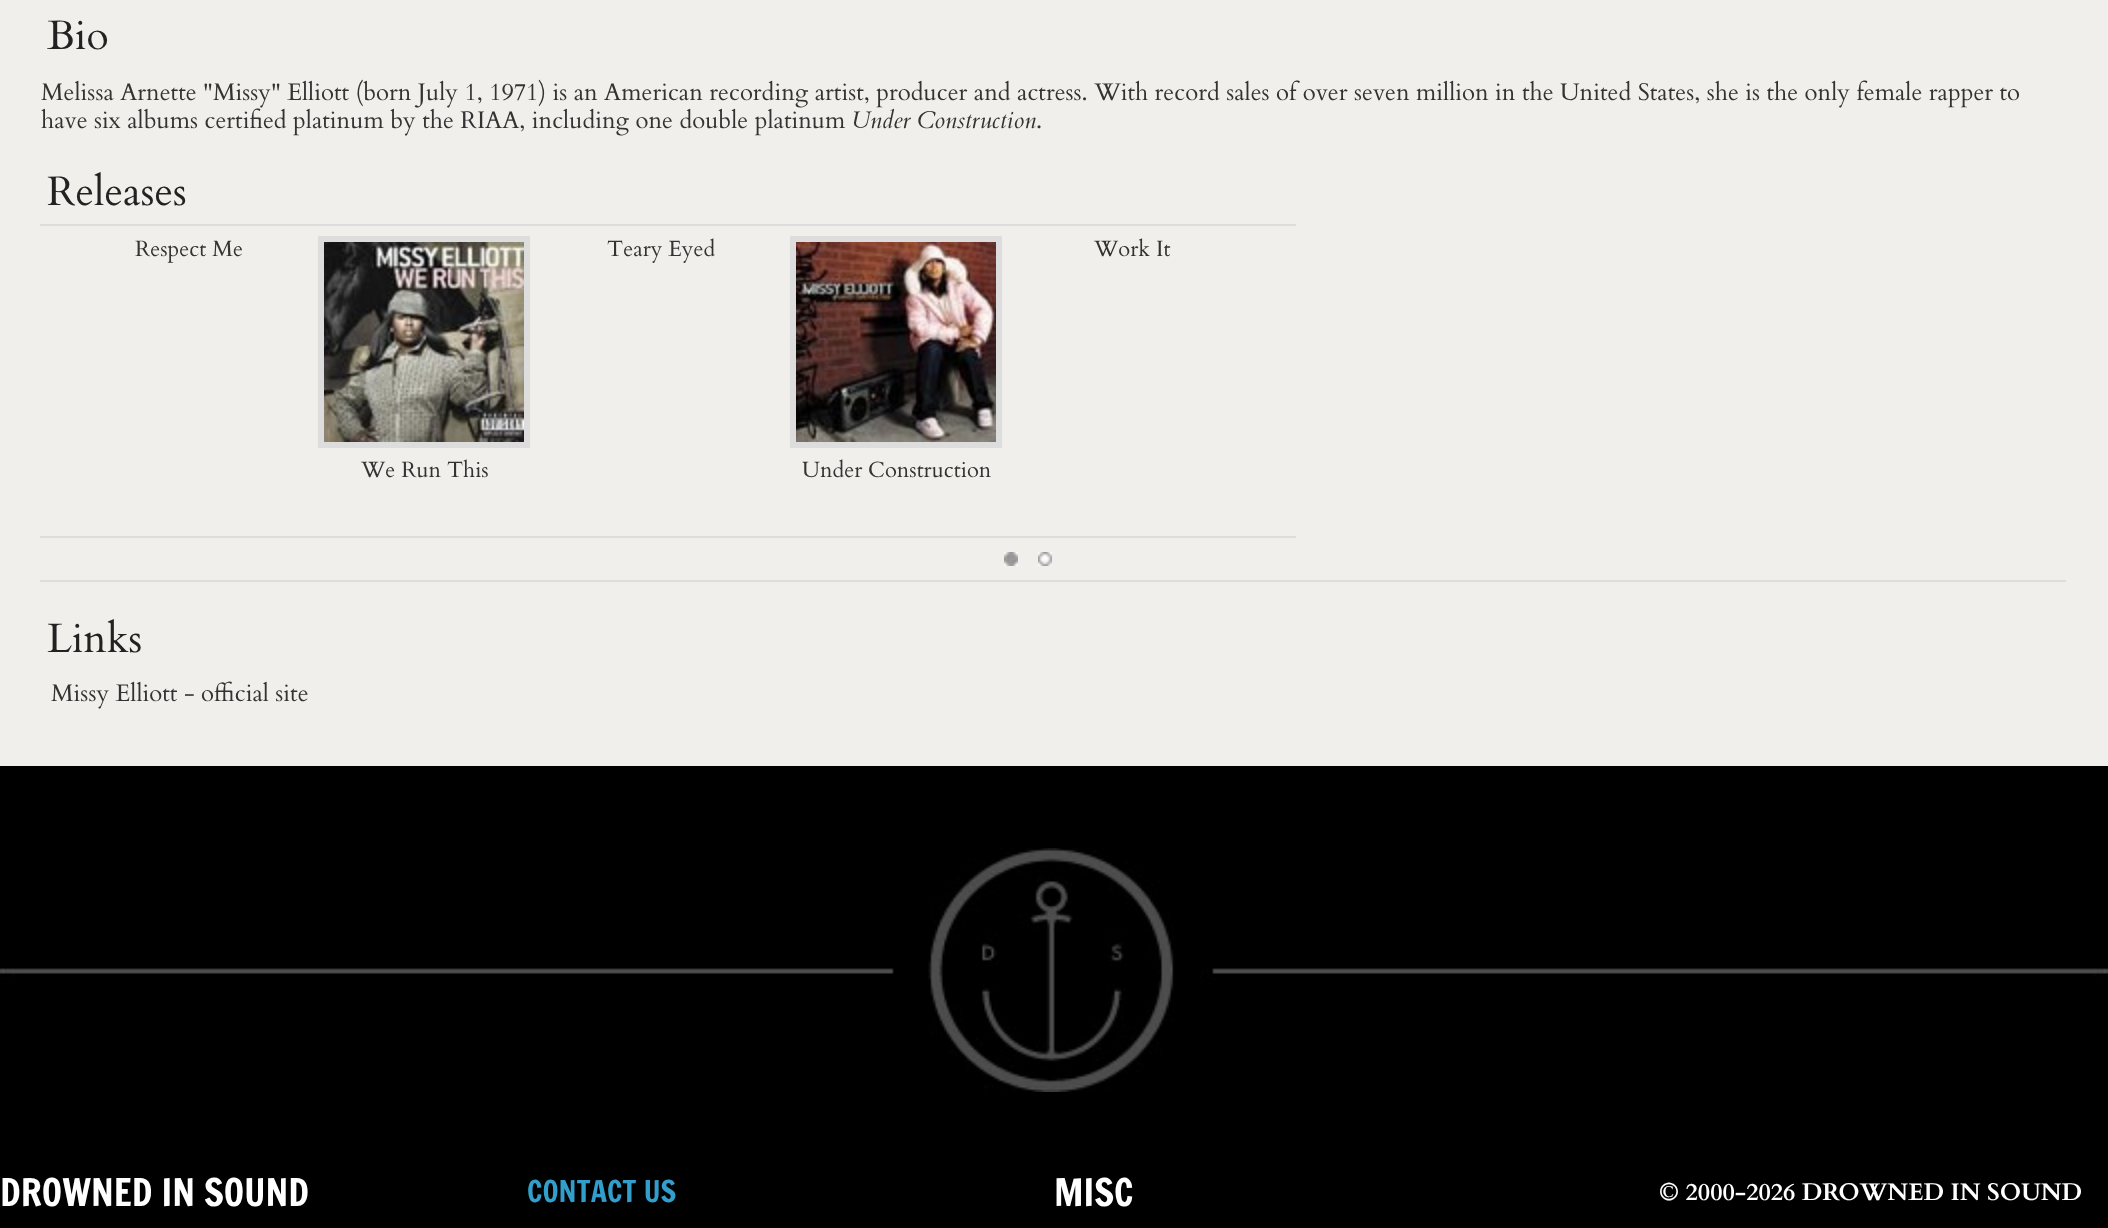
<!DOCTYPE html>
<meta charset="utf-8">
<style>body { margin: 0 } canvas { display: block }</style>
<canvas id="canvas" width="2108" height="1228"></canvas>
<script type="module">
  const canvas = document.getElementById("canvas");
  const g = canvas.getContext("2d");
  g.miterLimit = 4;
  g.fontKerning = "normal";
  function drawText(s, x, y, [font, color]) {
    g.font = font;
    g.fillStyle = color;
    g.fillText(s, x, y);
  }
  function fillBox(x, y, w, h, color) {
    g.fillStyle = color;
    g.fillRect(x, y, w, h);
  }
  async function drawPicture(src, x, y, w, h) {
    const img = new Image();
    img.src = src;
    await img.decode();
    g.drawImage(img, x, y, w, h);
  }

  const s1 = ["41px Cardo", "#222222"];
  const s2 = ["24px Cardo", "#333333"];
  const s3 = ["italic 24px Cardo", "#333333"];
  const s4 = ["22px Cardo", "#333333"];
  const s5 = ["37.25px Francois One", "#FFFFFF"];
  const s6 = ["29.5px Francois One", "#329ECC"];
  const s7 = ["bold 24px Cardo", "#FFFFFF"];

  fillBox(0, 0, 2108, 1228, "#F0EFEB");
  drawText("Bio", 47, 49, s1);
  drawText("Melissa Arnette \"Missy\" Elliott (born July 1, 1971) is an American recording artist, producer and actress. With record sales of over seven million in the United States, she is the only female rapper to", 41, 100, s2);
  drawText("have six albums certified platinum by the RIAA, including one double platinum", 41, 128, s2);
  drawText("Under Construction", 851, 128, s3);
  drawText(".", 1036, 128, s2);
  drawText("Releases", 47, 205, s1);
  fillBox(40, 224, 1256, 2, "#DDDDDD");
  fillBox(40, 536, 1256, 2, "#DDDDDD");
  drawText("Respect Me", 135, 256, s4);
  drawText("Teary Eyed", 607, 256, s4);
  drawText("Work It", 1094, 256, s4);
  g.strokeStyle = "#DDDDDD";
  g.lineWidth = 6;
  g.strokeRect(321, 239, 206, 206);
  await drawPicture("pic1.png", 324, 242, 200, 200);
  drawText("We Run This", 361, 477, s4);
  g.strokeRect(793, 239, 206, 206);
  await drawPicture("pic2.png", 796, 242, 200, 200);
  drawText("Under Construction", 802, 477, s4);
  fillBox(40, 580, 2026, 2, "#DDDDDD");
  await drawPicture("pic3.png", 1004, 552, 14, 14);
  await drawPicture("pic4.png", 1038, 552, 14, 1);
  await drawPicture("pic5.png", 1038, 553, 14, 13);
  drawText("Links", 47, 652, s1);
  drawText("Missy Elliott - official site", 51, 701, s2);
  fillBox(0, 766, 2108, 462, "#000000");
  await drawPicture("pic6.png", 0, 848, 2108, 244);
  drawText("DROWNED IN SOUND", 0, 1206, s5);
  drawText("CONTACT US", 527, 1202, s6);
  drawText("MISC", 1054, 1206, s5);
  drawText("© 2000-2026 DROWNED IN SOUND", 1659, 1200, s7);
</script>
